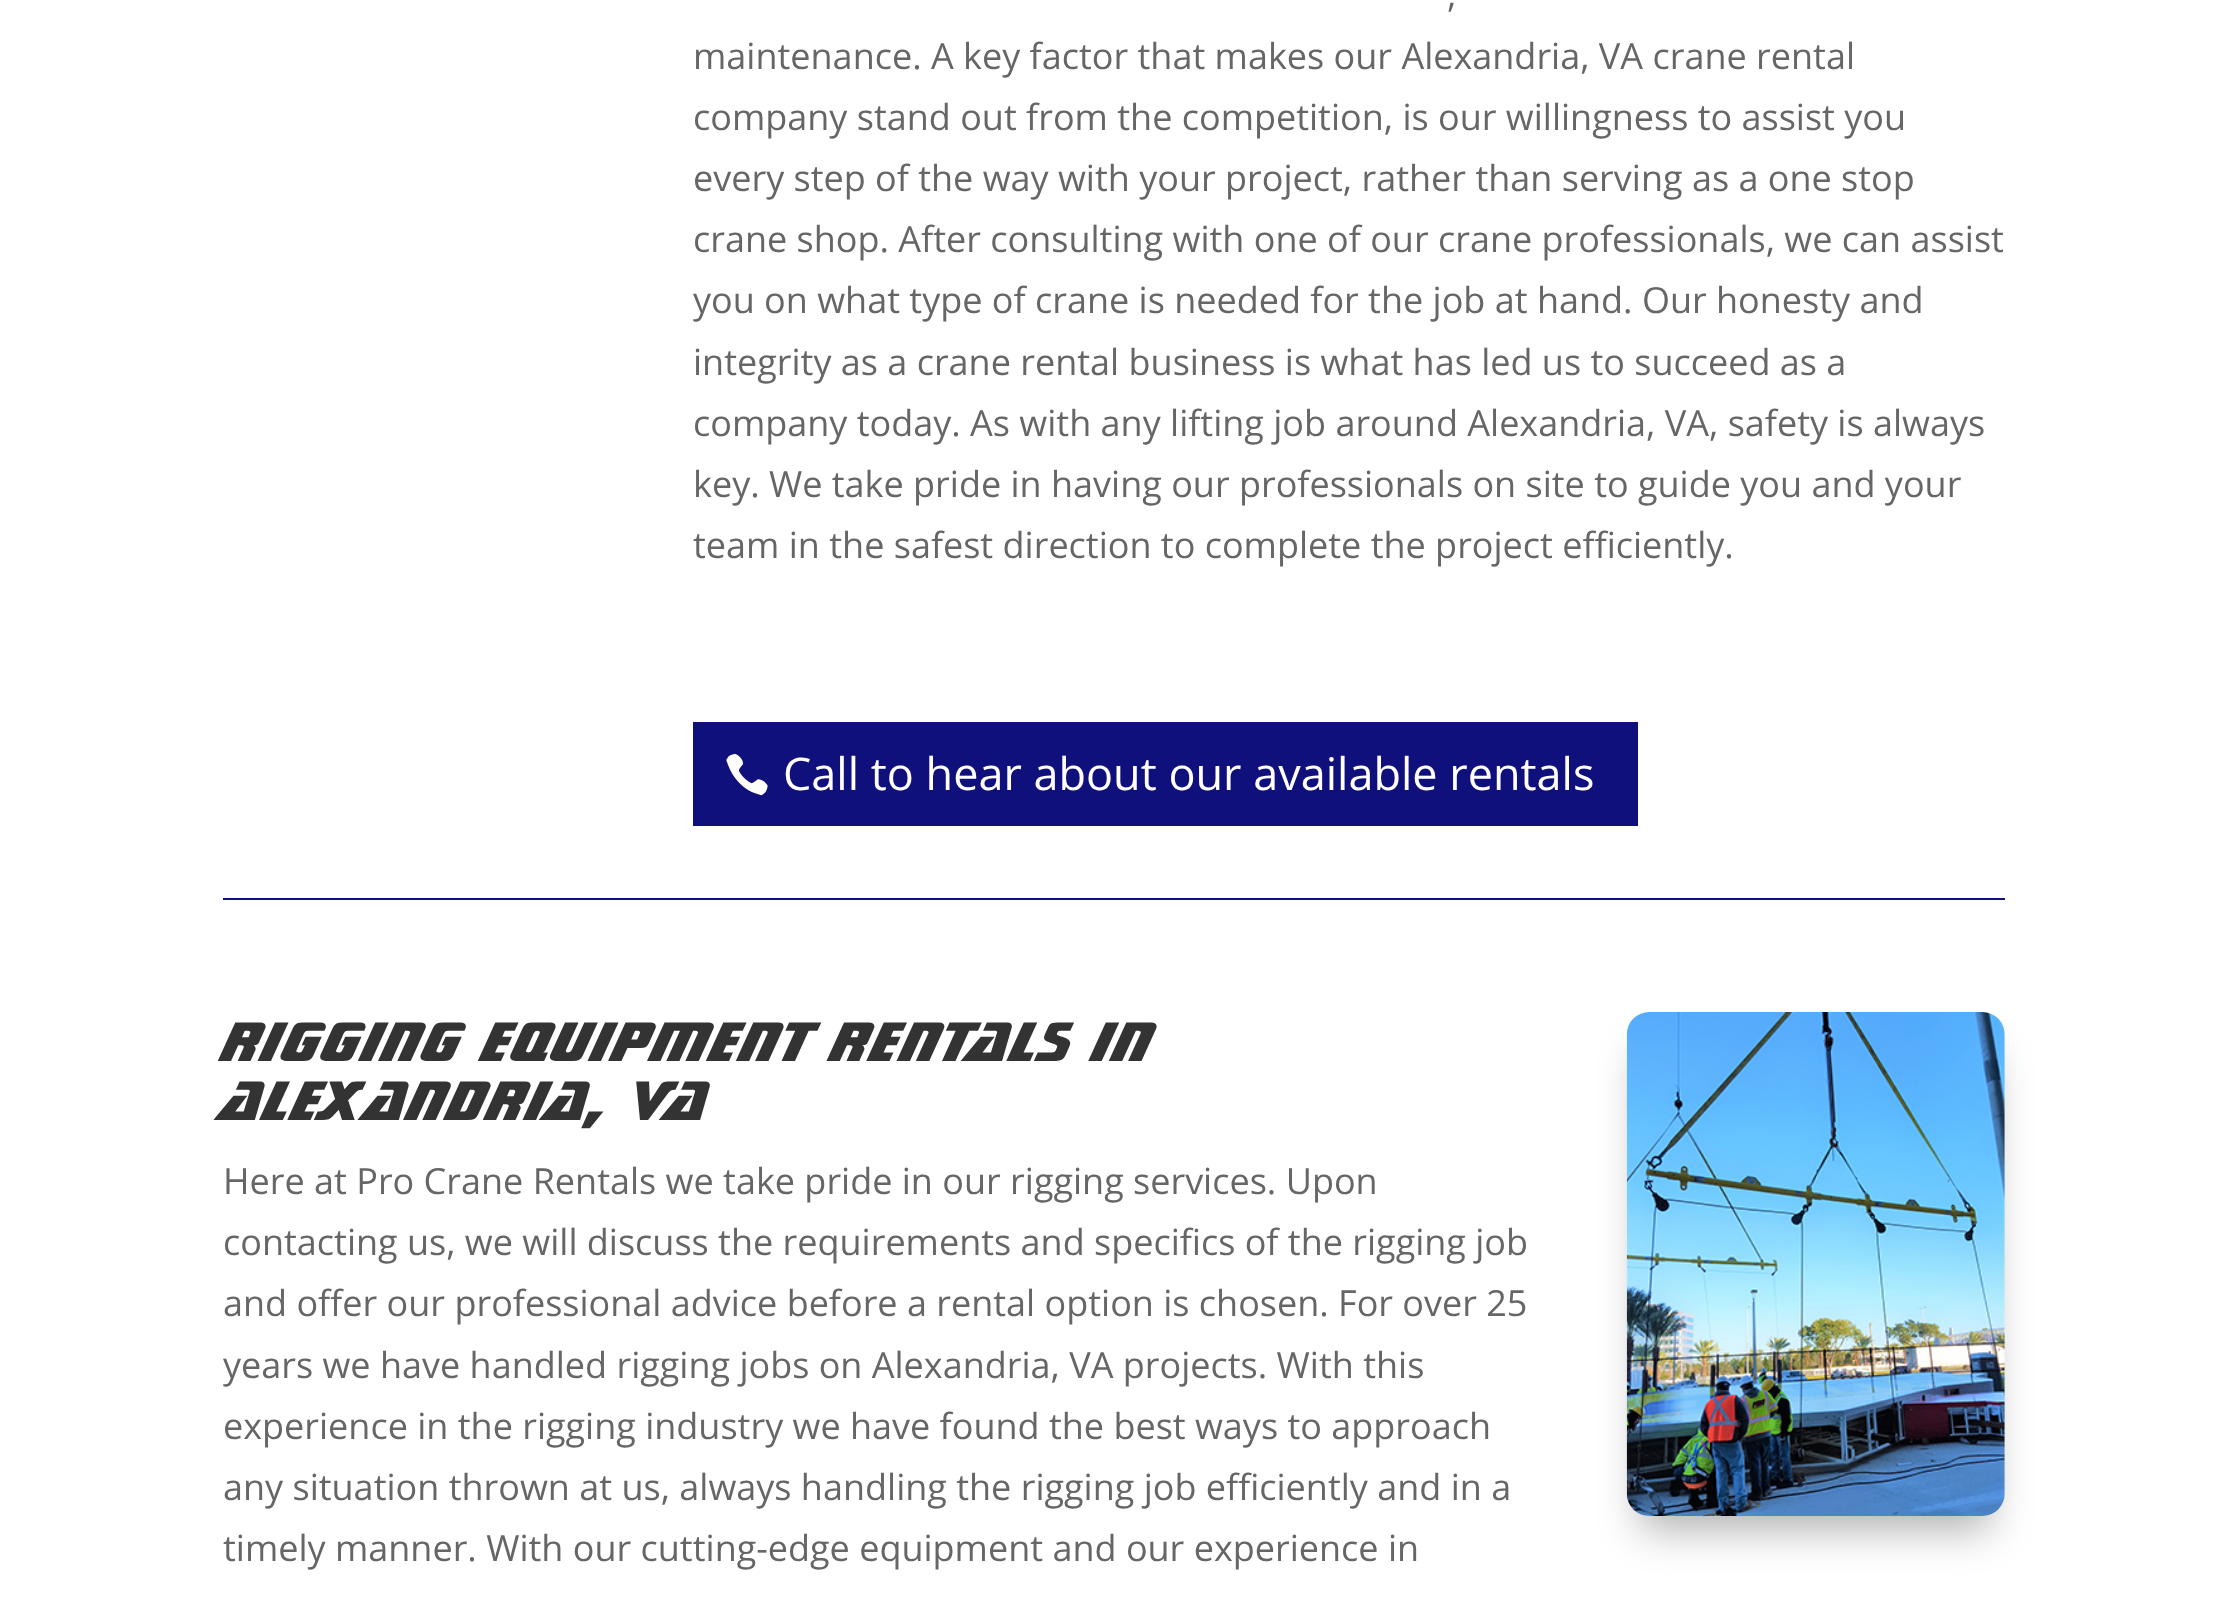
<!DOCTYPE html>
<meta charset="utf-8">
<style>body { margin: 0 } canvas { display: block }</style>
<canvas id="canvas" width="2227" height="1601"></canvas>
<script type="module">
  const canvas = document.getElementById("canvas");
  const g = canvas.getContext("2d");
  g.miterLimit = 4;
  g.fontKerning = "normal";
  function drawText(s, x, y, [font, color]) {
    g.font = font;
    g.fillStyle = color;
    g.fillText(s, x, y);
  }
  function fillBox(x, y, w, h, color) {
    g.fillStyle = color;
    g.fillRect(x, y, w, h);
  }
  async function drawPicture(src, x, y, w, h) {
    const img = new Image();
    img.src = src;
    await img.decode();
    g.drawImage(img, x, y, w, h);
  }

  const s1 = ["36px Open Sans", "#666666"];
  const s2 = ["45px Open Sans", "#FFFFFF"];
  const s3 = ["900 58.5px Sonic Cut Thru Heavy", "#333333"];

  fillBox(0, 0, 2227, 1601, "#FFFFFF");
  drawText(",", 1447, 7, s1);
  drawText("maintenance. A key factor that makes our Alexandria, VA crane rental", 693, 69, s1);
  drawText("company stand out from the competition, is our willingness to assist you", 693, 130, s1);
  drawText("every step of the way with your project, rather than serving as a one stop", 693, 191, s1);
  drawText("crane shop. After consulting with one of our crane professionals, we can assist", 693, 252, s1);
  drawText("you on what type of crane is needed for the job at hand. Our honesty and", 693, 313, s1);
  drawText("integrity as a crane rental business is what has led us to succeed as a", 693, 375, s1);
  drawText("company today. As with any lifting job around Alexandria, VA, safety is always", 693, 436, s1);
  drawText("key. We take pride in having our professionals on site to guide you and your", 693, 497, s1);
  drawText("team in the safest direction to complete the project efficiently.", 693, 558, s1);
  fillBox(693, 722, 945, 104, "#10107C");
  await drawPicture("pic1.png", 726, 753, 42, 43);
  drawText("Call to hear about our available rentals", 783, 790, s2);
  fillBox(223, 898, 1782, 2, "#10107C");
  drawText("Rigging Equipment Rentals in", 223, 1061, s3);
  drawText("Alexandria, VA", 223, 1120, s3);
  drawText("Here at Pro Crane Rentals we take pride in our rigging services. Upon", 223, 1194, s1);
  drawText("contacting us, we will discuss the requirements and specifics of the rigging job", 223, 1255, s1);
  drawText("and offer our professional advice before a rental option is chosen. For over 25", 223, 1316, s1);
  drawText("years we have handled rigging jobs on Alexandria, VA projects. With this", 223, 1378, s1);
  drawText("experience in the rigging industry we have found the best ways to approach", 223, 1439, s1);
  drawText("any situation thrown at us, always handling the rigging job efficiently and in a", 223, 1500, s1);
  drawText("timely manner. With our cutting-edge equipment and our experience in", 223, 1561, s1);
  g.fillStyle = "rgba(0, 0, 0, 0.3)";
  g.filter = "blur(20px)";
  g.beginPath();
  g.roundRect(1640, 1053, 351, 477, 9);
  g.fill();
  g.filter = "none";
  await drawPicture("pic2.png", 1626, 1012, 379, 504);
</script>
